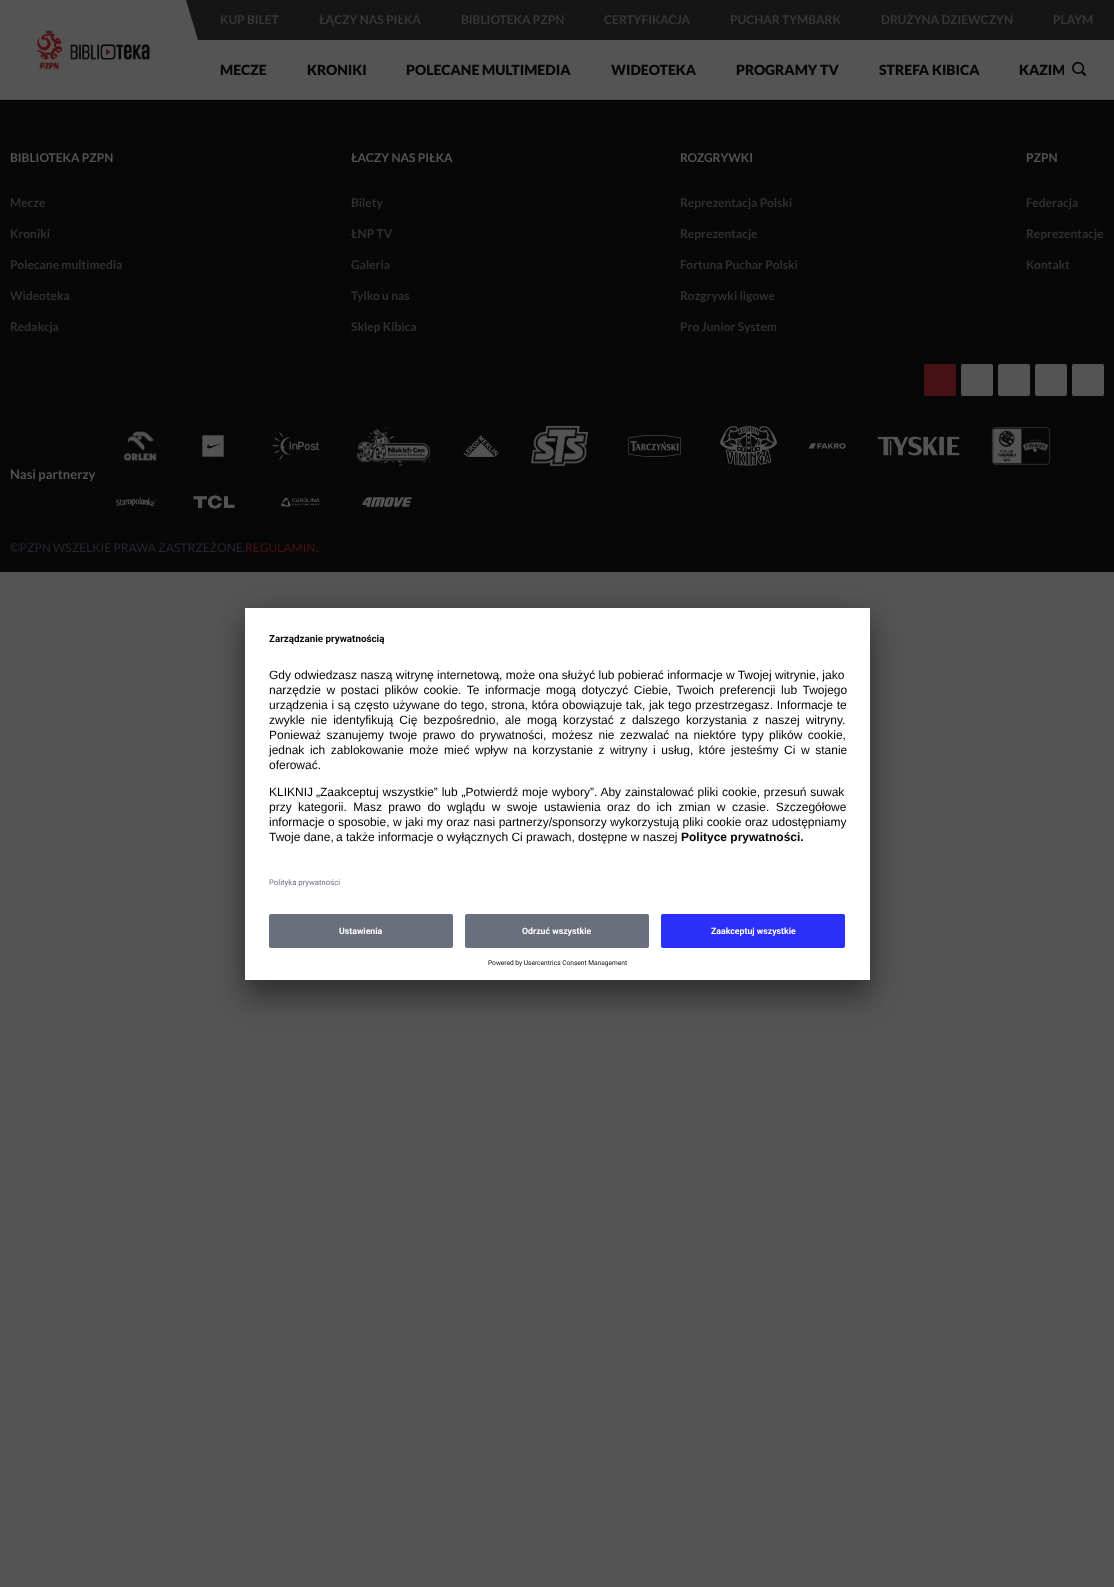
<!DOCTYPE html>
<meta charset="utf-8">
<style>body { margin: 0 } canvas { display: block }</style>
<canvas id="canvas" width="1114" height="1587"></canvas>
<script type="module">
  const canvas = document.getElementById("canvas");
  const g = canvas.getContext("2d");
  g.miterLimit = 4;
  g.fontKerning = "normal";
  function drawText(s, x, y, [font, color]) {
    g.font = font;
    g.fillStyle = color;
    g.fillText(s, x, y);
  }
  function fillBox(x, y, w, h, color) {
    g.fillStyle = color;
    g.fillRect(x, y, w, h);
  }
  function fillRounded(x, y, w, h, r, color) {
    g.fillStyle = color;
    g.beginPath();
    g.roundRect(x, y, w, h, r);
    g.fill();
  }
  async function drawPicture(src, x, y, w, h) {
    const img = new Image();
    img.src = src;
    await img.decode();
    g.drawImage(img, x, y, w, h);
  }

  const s1 = ["bold 12px Lato", "#373738"];
  const s2 = ["900 14px Lato", "#070708"];
  const s3 = ["bold 12px Lato", "#545454"];
  const s4 = ["bold 12px Lato", "#303031"];
  const s5 = ["bold 13px Lato", "#545454"];
  const s6 = ["12px Lato", "#27282E"];
  const s7 = ["12px Lato", "#471216"];
  const s8 = ["bold 9.8px Roboto", "#070708"];
  const s9 = ["12px Liberation Sans", "#000000"];
  const s10 = ["bold 12px Liberation Sans", "#000000"];
  const s11 = ["7.75px Roboto", "#6A6F7E"];
  const s12 = ["bold 8.75px Roboto", "#FFFFFF"];
  const s13 = ["6.6px Roboto", "#070708"];

  fillBox(0, 0, 1114, 1587, "#545454");
  fillBox(0, 99, 1114, 1, "#4C4C4C");
  fillBox(186, 0, 928, 40, "#151516");
  g.fillStyle = "#545454";
  g.beginPath();
  g.moveTo(172, 0);
  g.lineTo(186, 0);
  g.lineTo(198, 40);
  g.lineTo(184, 40);
  g.closePath();
  g.fill();
  await drawPicture("pic1.png", 36, 30, 114, 40);
  drawText("KUP BILET", 220, 24, s1);
  drawText("ŁĄCZY NAS PIŁKA", 319, 24, s1);
  drawText("BIBLIOTEKA PZPN", 461, 24, s1);
  drawText("CERTYFIKACJA", 604, 24, s1);
  drawText("PUCHAR TYMBARK", 730, 24, s1);
  drawText("DRUŻYNA DZIEWCZYN", 881, 24, s1);
  drawText("PLAYM", 1053, 24, s1);
  drawText("MECZE", 220, 75, s2);
  drawText("KRONIKI", 307, 75, s2);
  drawText("POLECANE MULTIMEDIA", 406, 75, s2);
  drawText("WIDEOTEKA", 611, 75, s2);
  drawText("PROGRAMY TV", 736, 75, s2);
  drawText("STREFA KIBICA", 879, 75, s2);
  g.save();
  g.beginPath();
  g.rect(200, 40, 864, 59);
  g.clip();
  drawText("KAZIM", 1019, 75, s2);
  g.restore();
  await drawPicture("pic2.png", 1072, 61, 14, 15);
  fillBox(0, 100, 1114, 472, "#070708");
  drawText("BIBLIOTEKA PZPN", 10, 162, s3);
  drawText("Mecze", 10, 207, s4);
  drawText("Kroniki", 10, 238, s4);
  drawText("Polecane multimedia", 10, 269, s4);
  drawText("Wideoteka", 10, 300, s4);
  drawText("Redakcja", 10, 331, s4);
  drawText("ŁACZY NAS PIŁKA", 351, 162, s3);
  drawText("Bilety", 351, 207, s4);
  drawText("ŁNP TV", 351, 238, s4);
  drawText("Galeria", 351, 269, s4);
  drawText("Tylko u nas", 351, 300, s4);
  drawText("Sklep Kibica", 351, 331, s4);
  drawText("ROZGRYWKI", 680, 162, s3);
  drawText("Reprezentacja Polski", 680, 207, s4);
  drawText("Reprezentacje", 680, 238, s4);
  drawText("Fortuna Puchar Polski", 680, 269, s4);
  drawText("Rozgrywki ligowe", 680, 300, s4);
  drawText("Pro Junior System", 680, 331, s4);
  drawText("PZPN", 1026, 162, s3);
  drawText("Federacja", 1026, 207, s4);
  drawText("Reprezentacje", 1026, 238, s4);
  drawText("Kontakt", 1026, 269, s4);
  fillRounded(924, 364, 32, 32, 2, "#471216");
  fillRounded(961, 364, 32, 32, 2, "#545454");
  fillRounded(998, 364, 32, 32, 2, "#545454");
  fillRounded(1035, 364, 32, 32, 2, "#545454");
  fillRounded(1072, 364, 32, 32, 2, "#545454");
  drawText("Nasi partnerzy", 10, 479, s5);
  await drawPicture("pic3.png", 123, 431, 34, 31);
  await drawPicture("pic4.png", 202, 435, 22, 22);
  await drawPicture("pic5.png", 272, 432, 47, 28);
  await drawPicture("pic6.png", 357, 426, 74, 40);
  await drawPicture("pic7.png", 463, 435, 36, 22);
  await drawPicture("pic8.png", 531, 426, 57, 40);
  await drawPicture("pic9.png", 628, 435, 53, 22);
  await drawPicture("pic10.png", 720, 426, 57, 40);
  await drawPicture("pic11.png", 808, 443, 38, 6);
  await drawPicture("pic12.png", 877, 436, 83, 20);
  await drawPicture("pic13.png", 991, 427, 60, 38);
  await drawPicture("pic14.png", 116, 497, 40, 10);
  await drawPicture("pic15.png", 193, 495, 42, 14);
  await drawPicture("pic16.png", 281, 497, 39, 10);
  await drawPicture("pic17.png", 362, 497, 50, 10);
  drawText("©PZPN WSZELKIE PRAWA ZASTRZEŻONE.", 10, 552, s6);
  drawText("REGULAMIN", 245, 552, s7);
  drawText(".", 316, 552, s6);
  g.fillStyle = "rgba(0, 0, 0, 0.3)";
  g.filter = "blur(14px)";
  g.beginPath();
  g.rect(245, 628, 625, 372);
  g.fill();
  g.filter = "none";
  g.fillStyle = "rgba(0, 0, 0, 0.22)";
  g.filter = "blur(13px)";
  g.beginPath();
  g.rect(245, 613, 625, 372);
  g.fill();
  g.filter = "none";
  fillBox(245, 608, 625, 372, "#FFFFFF");
  drawText("Zarządzanie prywatnością", 269, 642, s8);
  drawText("Gdy odwiedzasz naszą witrynę internetową, może ona służyć lub pobierać informacje w Twojej witrynie, jako", 269, 679, s9);
  g.wordSpacing = "2.25px";
  drawText("narzędzie w postaci plików cookie. Te informacje mogą dotyczyć Ciebie, Twoich preferencji lub Twojego", 269, 694, s9);
  g.wordSpacing = "0.4px";
  drawText("urządzenia i są często używane do tego, strona, która obowiązuje tak, jak tego przestrzegasz. Informacje te", 269, 709, s9);
  g.wordSpacing = "2.75px";
  drawText("zwykle nie identyfikują Cię bezpośrednio, ale mogą korzystać z dalszego korzystania z naszej witryny.", 269, 724, s9);
  g.wordSpacing = "2.1px";
  drawText("Ponieważ szanujemy twoje prawo do prywatności, możesz nie zezwalać na niektóre typy plików cookie,", 269, 739, s9);
  g.wordSpacing = "2.25px";
  drawText("jednak ich zablokowanie może mieć wpływ na korzystanie z witryny i usług, które jesteśmy Ci w stanie", 269, 754, s9);
  g.wordSpacing = "0px";
  drawText("oferować.", 269, 769, s9);
  drawText("KLIKNIJ", 269, 796, s9);
  g.wordSpacing = "0.5px";
  drawText("„Zaakceptuj wszystkie” lub „Potwierdź moje wybory”. Aby zainstalować pliki cookie, przesuń suwak", 316, 796, s9);
  g.wordSpacing = "3.1px";
  drawText("przy kategorii. Masz prawo do wglądu w swoje ustawienia oraz do ich zmian w czasie. Szczegółowe", 269, 811, s9);
  g.wordSpacing = "0.2px";
  drawText("informacje o sposobie, w jaki my oraz nasi partnerzy/sponsorzy wykorzystują pliki cookie oraz udostępniamy", 269, 826, s9);
  g.wordSpacing = "0px";
  drawText("Twoje dane,", 269, 841, s9);
  drawText("a także informacje o wyłącznych Ci prawach, dostępne w naszej", 336, 841, s9);
  drawText("Polityce prywatności.", 681, 841, s10);
  drawText("Polityka prywatności", 269, 885, s11);
  fillRounded(269, 914, 184, 34, 2, "#6A6F7E");
  drawText("Ustawienia", 339, 934, s12);
  fillRounded(465, 914, 184, 34, 2, "#6A6F7E");
  drawText("Odrzuć wszystkie", 522, 934, s12);
  fillRounded(661, 914, 184, 34, 2, "#2C2EFA");
  drawText("Zaakceptuj wszystkie", 711, 934, s12);
  drawText("Powered by Usercentrics Consent Management", 488, 965, s13);
</script>
